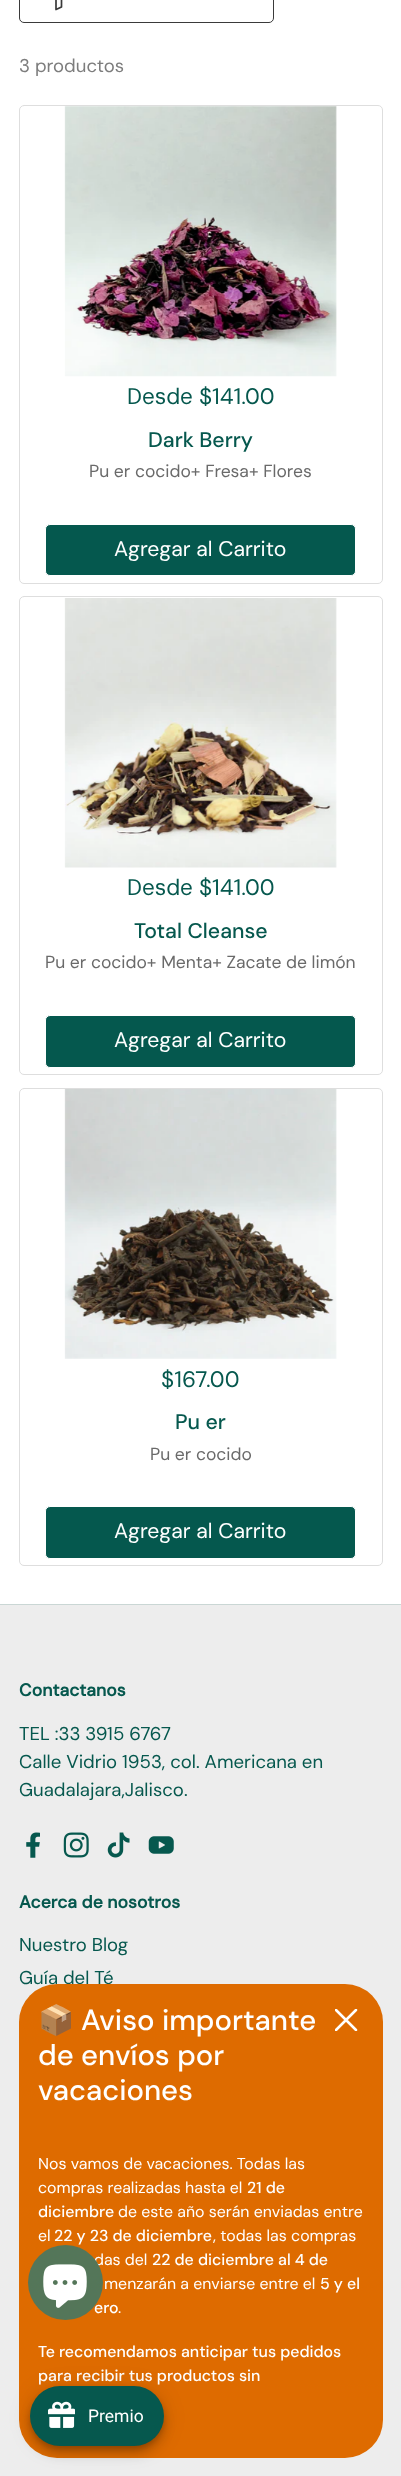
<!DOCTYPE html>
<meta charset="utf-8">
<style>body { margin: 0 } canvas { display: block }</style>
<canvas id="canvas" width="401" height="2476"></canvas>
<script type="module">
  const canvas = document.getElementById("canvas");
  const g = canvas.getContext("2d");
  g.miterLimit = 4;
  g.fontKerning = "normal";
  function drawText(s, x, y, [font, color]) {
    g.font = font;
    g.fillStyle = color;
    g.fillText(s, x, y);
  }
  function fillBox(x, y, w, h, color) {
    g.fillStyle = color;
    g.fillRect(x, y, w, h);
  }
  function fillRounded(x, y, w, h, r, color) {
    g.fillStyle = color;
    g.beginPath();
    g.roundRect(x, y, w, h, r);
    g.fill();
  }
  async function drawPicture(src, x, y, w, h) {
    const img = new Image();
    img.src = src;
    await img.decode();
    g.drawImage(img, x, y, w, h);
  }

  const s1 = ["18.6px DM Sans", "#7D7D7D"];
  const s2 = ["22.5px 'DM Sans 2'", "#06584E"];
  const s3 = ["500 21.25px DM Sans", "#06584E"];
  const s4 = ["17.5px 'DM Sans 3'", "#6A6A6A"];
  const s5 = ["21.25px 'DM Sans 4'", "#FFFFFF"];
  const s6 = ["bold 17.5px DM Sans", "#06584E"];
  const s7 = ["18.6px DM Sans", "#06584E"];
  const s8 = ["29.25px Noto Color Emoji", "#FFFFFF"];
  const s9 = ["500 29.25px 'DM Sans 2'", "#FFFFFF"];
  const s10 = ["15.9px 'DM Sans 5'", "#FFFFFF"];
  const s11 = ["500 15.9px 'DM Sans 3'", "#FFFFFF"];
  const s12 = ["17.5px Roboto", "#FFFFFF"];

  fillBox(0, 0, 401, 2476, "#FFFFFF");
  g.beginPath();
  g.roundRect(19.5, -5.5, 254, 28, 4.5);
  g.strokeStyle = "#3A3A3A";
  g.stroke();
  g.beginPath();
  g.moveTo(46, -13);
  g.lineTo(71.5, -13);
  g.lineTo(61.5, -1.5);
  g.lineTo(61.5, 7);
  g.lineTo(56, 9.5);
  g.lineTo(56, -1.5);
  g.closePath();
  g.lineWidth = 1.7;
  g.lineCap = "round";
  g.lineJoin = "round";
  g.stroke();
  drawText("3 productos", 19, 72, s1);
  g.beginPath();
  g.roundRect(19.5, 105.5, 363, 478, 4.5);
  g.strokeStyle = "#DEDEDE";
  g.lineWidth = 1;
  g.lineJoin = "miter";
  g.stroke();
  await drawPicture("pic1.png", 64, 106, 273, 271);
  drawText("Desde $141.00", 127, 404, s2);
  drawText("Dark Berry", 148, 447, s3);
  drawText("Pu er cocido+ Fresa+ Flores", 89, 477, s4);
  g.fillStyle = "#05584E";
  g.beginPath();
  g.roundRect(45.5, 524.5, 310, 51, 4.5);
  g.fill();
  g.strokeStyle = "#FFFFFF";
  g.stroke();
  drawText("Agregar al Carrito", 114, 556, s5);
  g.beginPath();
  g.roundRect(19.5, 596.5, 363, 478, 4.5);
  g.strokeStyle = "#DEDEDE";
  g.stroke();
  await drawPicture("pic2.png", 64, 598, 273, 270);
  drawText("Desde $141.00", 127, 895, s2);
  drawText("Total Cleanse", 134, 938, s3);
  drawText("Pu er cocido+ Menta+ Zacate de limón", 45, 968, s4);
  g.fillStyle = "#05584E";
  g.beginPath();
  g.roundRect(45.5, 1015.5, 310, 52, 4.5);
  g.fill();
  g.strokeStyle = "#FFFFFF";
  g.stroke();
  drawText("Agregar al Carrito", 114, 1047, s5);
  g.beginPath();
  g.roundRect(19.5, 1088.5, 363, 477, 4.5);
  g.strokeStyle = "#DEDEDE";
  g.stroke();
  await drawPicture("pic3.png", 64, 1089, 273, 270);
  drawText("$167.00", 161, 1387, s2);
  drawText("Pu er", 175, 1429, s3);
  drawText("Pu er cocido", 150, 1460, s4);
  g.fillStyle = "#05584E";
  g.beginPath();
  g.roundRect(45.5, 1506.5, 310, 52, 4.5);
  g.fill();
  g.strokeStyle = "#FFFFFF";
  g.stroke();
  drawText("Agregar al Carrito", 114, 1538, s5);
  fillBox(0, 1605, 401, 871, "#EDEDED");
  fillBox(0, 1604, 401, 1, "#CAD7D5");
  drawText("Contactanos", 19, 1696, s6);
  drawText("TEL :33 3915 6767", 19, 1740, s7);
  drawText("Calle Vidrio 1953, col. Americana en", 19, 1768, s7);
  drawText("Guadalajara,Jalisco.", 19, 1796, s7);
  await drawPicture("pic4.png", 26, 1832, 14, 26);
  await drawPicture("pic5.png", 63, 1832, 26, 26);
  await drawPicture("pic6.png", 107, 1832, 23, 26);
  await drawPicture("pic7.png", 148, 1836, 26, 18);
  drawText("Acerca de nosotros", 19, 1908, s6);
  drawText("Nuestro Blog", 19, 1951, s7);
  drawText("Guía del Té", 19, 1984, s7);
  fillRounded(19, 1984, 364, 474, 38, "#DE6B00");
  drawText("📦", 38, 2030, s8);
  drawText("Aviso importante", 81, 2030, s9);
  drawText("de envíos por", 38, 2065, s9);
  drawText("vacaciones", 38, 2100, s9);
  drawText("Nos vamos de vacaciones. Todas las", 38, 2169, s10);
  drawText("compras realizadas hasta el", 38, 2193, s10);
  drawText("21 de", 247, 2193, s11);
  drawText("diciembre", 38, 2217, s11);
  drawText("de este año serán enviadas entre", 118, 2217, s10);
  drawText("el", 38, 2241, s10);
  drawText("22 y 23 de diciembre", 54, 2241, s11);
  drawText(", todas las compras", 213, 2241, s10);
  drawText("das del", 94, 2265, s10);
  drawText("22 de diciembre al 4 de", 152, 2265, s11);
  drawText("menzarán a enviarse entre el", 104, 2289, s10);
  drawText("5 y el", 320, 2289, s11);
  drawText("ero", 94, 2313, s11);
  drawText(".", 118, 2313, s10);
  drawText("Te recomendamos anticipar tus pedidos", 38, 2357, s11);
  drawText("para recibir tus productos sin", 38, 2381, s11);
  g.save();
  g.beginPath();
  g.rect(335, 2009, 23, 22);
  g.clip();
  g.beginPath();
  g.moveTo(356, 2010);
  g.lineTo(336, 2030);
  g.moveTo(336, 2010);
  g.lineTo(356, 2030);
  g.lineWidth = 2.5;
  g.lineJoin = "round";
  g.stroke();
  g.restore();
  g.fillStyle = "#547659";
  g.beginPath();
  g.arc(65.5, 2282.5, 37.5, 0, Math.PI * 2);
  g.fill();
  await drawPicture("pic8.png", 43, 2264, 44, 44);
  g.fillStyle = "rgba(0, 0, 0, 0.12)";
  g.filter = "blur(11px)";
  g.beginPath();
  g.roundRect(30, 2388, 134, 60, 30);
  g.fill();
  g.filter = "none";
  g.fillStyle = "rgba(0, 0, 0, 0.14)";
  g.filter = "blur(6px)";
  g.beginPath();
  g.roundRect(30, 2394, 134, 60, 30);
  g.fill();
  g.filter = "none";
  g.fillStyle = "rgba(0, 0, 0, 0.2)";
  g.filter = "blur(3px)";
  g.beginPath();
  g.roundRect(31, 2391, 132, 58, 29);
  g.fill();
  g.filter = "none";
  fillRounded(30, 2386, 134, 60, 30, "#06584E");
  await drawPicture("pic9.png", 48, 2401, 27, 27);
  drawText("Premio", 88, 2422, s12);
</script>
